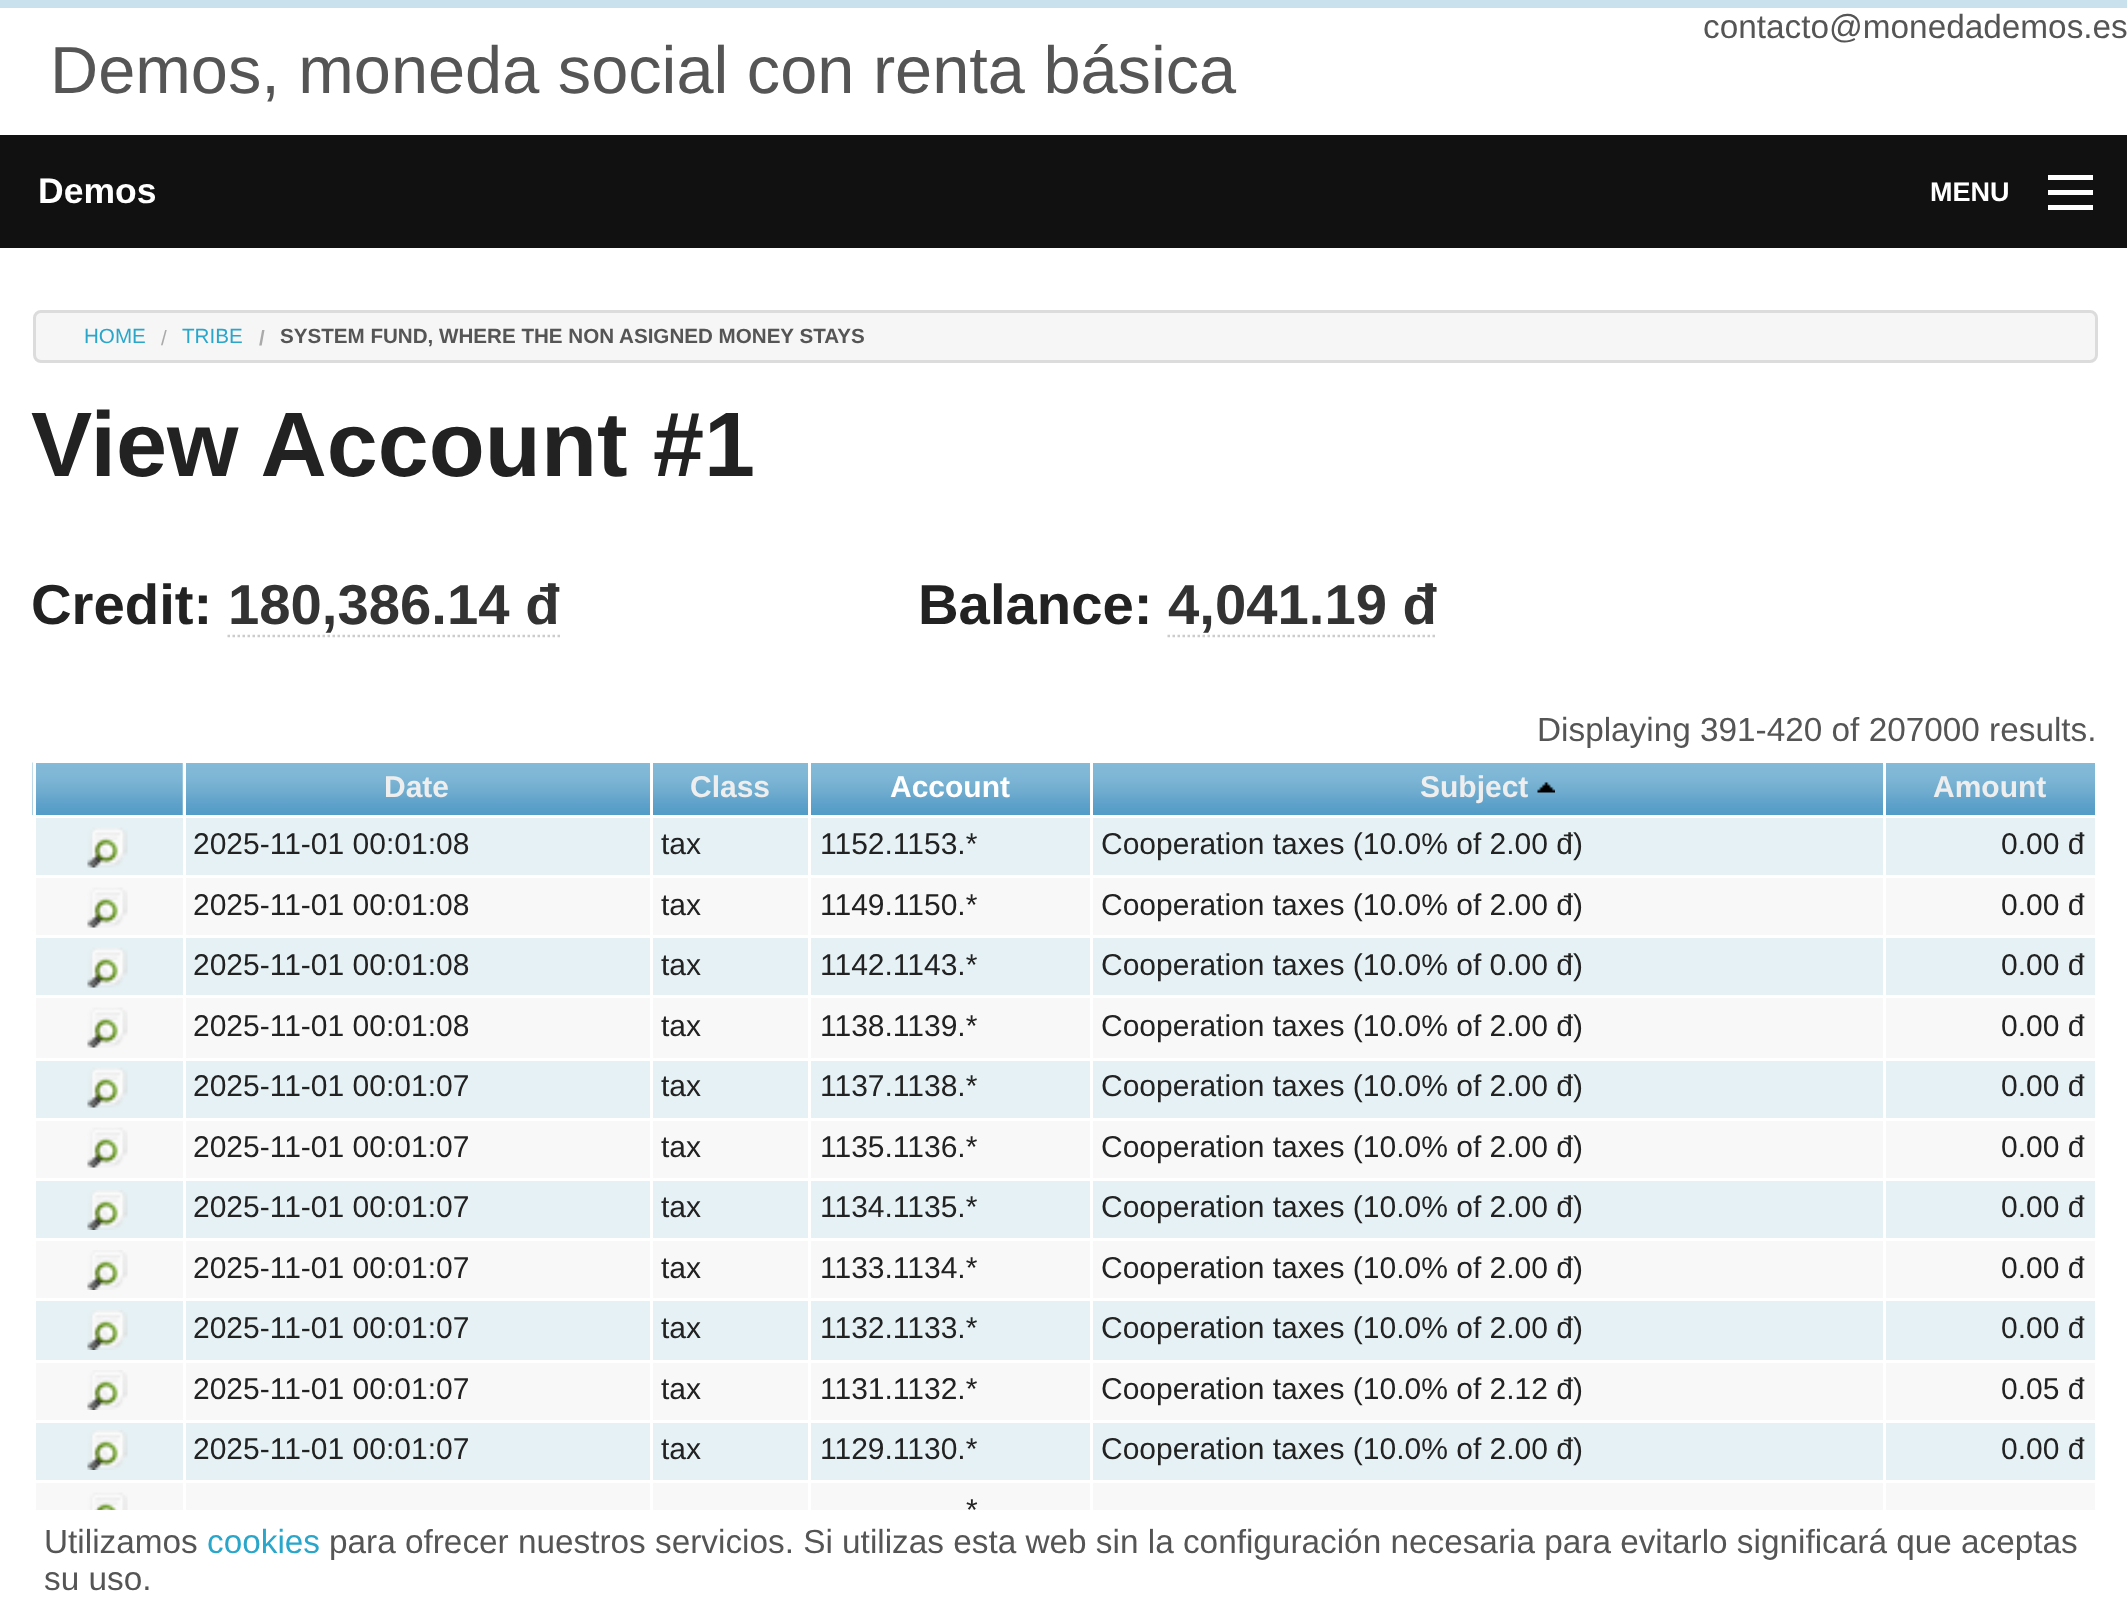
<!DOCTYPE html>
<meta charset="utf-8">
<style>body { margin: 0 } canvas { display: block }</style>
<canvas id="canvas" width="2127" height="1608"></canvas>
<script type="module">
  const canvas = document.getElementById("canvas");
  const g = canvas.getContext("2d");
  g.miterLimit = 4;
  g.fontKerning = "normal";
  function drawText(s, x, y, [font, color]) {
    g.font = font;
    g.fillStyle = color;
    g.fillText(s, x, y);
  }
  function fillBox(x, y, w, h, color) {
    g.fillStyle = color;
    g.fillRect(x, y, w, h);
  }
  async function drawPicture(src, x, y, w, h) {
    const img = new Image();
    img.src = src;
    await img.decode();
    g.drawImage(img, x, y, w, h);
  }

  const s1 = ["33.33px Liberation Sans", "#555555"];
  const s2 = ["66.7px Liberation Sans", "#555555"];
  const s3 = ["bold 35.5px Liberation Sans", "#FFFFFF"];
  const s4 = ["bold 27px Liberation Sans", "#FFFFFF"];
  const s5 = ["20.6px Liberation Sans", "#2BA6CB"];
  const s6 = ["20.6px Liberation Sans", "#AAAAAA"];
  const s7 = ["bold 20.6px Liberation Sans", "#AAAAAA"];
  const s8 = ["bold 20.6px Liberation Sans", "#555555"];
  const s9 = ["bold 91.75px Liberation Sans", "#222222"];
  const s10 = ["bold 56.25px Liberation Sans", "#222222"];
  const s11 = ["bold 56.25px Liberation Sans", "#333333"];
  const s12 = ["bold 30px Liberation Sans", "#EEEEEE"];
  const s13 = ["bold 30px Liberation Sans", "#FFFFFF"];
  const s14 = ["30px Liberation Sans", "#222222"];
  const s15 = ["33.33px Liberation Sans", "#2BA6CB"];

  fillBox(0, 0, 2127, 1608, "#FFFFFF");
  fillBox(0, 0, 2127, 8, "#C9E0ED");
  drawText("contacto@monedademos.es", 1703, 38, s1);
  drawText("Demos, moneda social con renta básica", 50, 93, s2);
  fillBox(0, 135, 2127, 113, "#111111");
  drawText("Demos", 38, 203, s3);
  fillBox(2048, 205, 45, 5, "#FFFFFF");
  fillBox(2048, 190, 45, 5, "#FFFFFF");
  fillBox(2048, 175, 45, 5, "#FFFFFF");
  drawText("MENU", 1930, 201, s4);
  g.fillStyle = "#F6F6F6";
  g.beginPath();
  g.roundRect(34.5, 311.5, 2062, 50, 6.5);
  g.fill();
  g.strokeStyle = "#DCDCDC";
  g.lineWidth = 3;
  g.stroke();
  drawText("HOME", 84, 343, s5);
  drawText("/", 161, 345, s6);
  drawText("TRIBE", 182, 343, s5);
  drawText("/", 259, 345, s7);
  drawText("SYSTEM FUND, WHERE THE NON ASIGNED MONEY STAYS", 280, 343, s8);
  drawText("View Account #1", 31, 476, s9);
  drawText("Credit:", 31, 624, s10);
  drawText("180,386.14 đ", 228, 624, s11);
  g.beginPath();
  g.moveTo(227.5, 636);
  g.lineTo(560, 636);
  g.strokeStyle = "#CCCCCC";
  g.lineWidth = 2.5;
  g.setLineDash([2.5, 2.5]);
  g.stroke();
  drawText("Balance:", 918, 624, s10);
  drawText("4,041.19 đ", 1168, 624, s11);
  g.beginPath();
  g.moveTo(1167.5, 636);
  g.lineTo(1437.5, 636);
  g.stroke();
  drawText("Displaying 391-420 of 207000 results.", 1537, 741, s1);
  await drawPicture("pic1.png", 32, 762, 151, 53);
  await drawPicture("pic2.png", 182, 763, 468, 52);
  fillBox(36, 818, 2059, 57, "#E5F1F4");
  fillBox(36, 878, 2059, 57, "#F8F8F8");
  fillBox(36, 938, 2059, 57, "#E5F1F4");
  fillBox(36, 998, 2059, 60, "#F8F8F8");
  fillBox(36, 1061, 2059, 57, "#E5F1F4");
  fillBox(36, 1121, 2059, 57, "#F8F8F8");
  fillBox(36, 1181, 2059, 57, "#E5F1F4");
  fillBox(36, 1241, 2059, 57, "#F8F8F8");
  fillBox(36, 1301, 2059, 59, "#E5F1F4");
  fillBox(36, 1363, 2059, 57, "#F8F8F8");
  fillBox(36, 1423, 2059, 57, "#E5F1F4");
  fillBox(36, 1483, 2059, 27, "#F8F8F8");
  fillBox(183, 760, 3, 750, "#FFFFFF");
  fillBox(33, 762, 152, 1, "#FFFFFF");
  fillBox(33, 760, 3, 58, "#FFFFFF");
  drawText("Date", 384, 797, s12);
  await drawPicture("pic3.png", 653, 763, 155, 52);
  drawText("Class", 690, 797, s12);
  await drawPicture("pic4.png", 811, 763, 279, 52);
  drawText("Account", 890, 797, s13);
  await drawPicture("pic5.png", 1093, 763, 790, 52);
  drawText("Subject", 1420, 797, s12);
  await drawPicture("pic6.png", 1537, 782, 18, 11);
  await drawPicture("pic7.png", 1886, 763, 209, 52);
  drawText("Amount", 1933, 797, s12);
  await drawPicture("pic8.png", 87, 827, 41, 41);
  drawText("2025-11-01 00:01:08", 193, 854, s14);
  drawText("tax", 661, 854, s14);
  drawText("1152.1153.*", 820, 854, s14);
  drawText("Cooperation taxes (10.0% of 2.00 đ)", 1101, 854, s14);
  drawText("0.00 đ", 2001, 854, s14);
  await drawPicture("pic9.png", 87, 887, 41, 41);
  drawText("2025-11-01 00:01:08", 193, 915, s14);
  drawText("tax", 661, 915, s14);
  drawText("1149.1150.*", 820, 915, s14);
  drawText("Cooperation taxes (10.0% of 2.00 đ)", 1101, 915, s14);
  drawText("0.00 đ", 2001, 915, s14);
  await drawPicture("pic8.png", 87, 947, 41, 41);
  drawText("2025-11-01 00:01:08", 193, 975, s14);
  drawText("tax", 661, 975, s14);
  drawText("1142.1143.*", 820, 975, s14);
  drawText("Cooperation taxes (10.0% of 0.00 đ)", 1101, 975, s14);
  drawText("0.00 đ", 2001, 975, s14);
  await drawPicture("pic9.png", 87, 1007, 41, 41);
  drawText("2025-11-01 00:01:08", 193, 1036, s14);
  drawText("tax", 661, 1036, s14);
  drawText("1138.1139.*", 820, 1036, s14);
  drawText("Cooperation taxes (10.0% of 2.00 đ)", 1101, 1036, s14);
  drawText("0.00 đ", 2001, 1036, s14);
  await drawPicture("pic8.png", 87, 1067, 41, 41);
  drawText("2025-11-01 00:01:07", 193, 1096, s14);
  drawText("tax", 661, 1096, s14);
  drawText("1137.1138.*", 820, 1096, s14);
  drawText("Cooperation taxes (10.0% of 2.00 đ)", 1101, 1096, s14);
  drawText("0.00 đ", 2001, 1096, s14);
  await drawPicture("pic9.png", 87, 1127, 41, 41);
  drawText("2025-11-01 00:01:07", 193, 1157, s14);
  drawText("tax", 661, 1157, s14);
  drawText("1135.1136.*", 820, 1157, s14);
  drawText("Cooperation taxes (10.0% of 2.00 đ)", 1101, 1157, s14);
  drawText("0.00 đ", 2001, 1157, s14);
  await drawPicture("pic10.png", 87, 1190, 41, 40);
  drawText("2025-11-01 00:01:07", 193, 1217, s14);
  drawText("tax", 661, 1217, s14);
  drawText("1134.1135.*", 820, 1217, s14);
  drawText("Cooperation taxes (10.0% of 2.00 đ)", 1101, 1217, s14);
  drawText("0.00 đ", 2001, 1217, s14);
  await drawPicture("pic11.png", 87, 1250, 41, 40);
  drawText("2025-11-01 00:01:07", 193, 1278, s14);
  drawText("tax", 661, 1278, s14);
  drawText("1133.1134.*", 820, 1278, s14);
  drawText("Cooperation taxes (10.0% of 2.00 đ)", 1101, 1278, s14);
  drawText("0.00 đ", 2001, 1278, s14);
  await drawPicture("pic10.png", 87, 1310, 41, 40);
  drawText("2025-11-01 00:01:07", 193, 1338, s14);
  drawText("tax", 661, 1338, s14);
  drawText("1132.1133.*", 820, 1338, s14);
  drawText("Cooperation taxes (10.0% of 2.00 đ)", 1101, 1338, s14);
  drawText("0.00 đ", 2001, 1338, s14);
  await drawPicture("pic11.png", 87, 1370, 41, 40);
  drawText("2025-11-01 00:01:07", 193, 1399, s14);
  drawText("tax", 661, 1399, s14);
  drawText("1131.1132.*", 820, 1399, s14);
  drawText("Cooperation taxes (10.0% of 2.12 đ)", 1101, 1399, s14);
  drawText("0.05 đ", 2001, 1399, s14);
  await drawPicture("pic10.png", 87, 1430, 41, 40);
  drawText("2025-11-01 00:01:07", 193, 1459, s14);
  drawText("tax", 661, 1459, s14);
  drawText("1129.1130.*", 820, 1459, s14);
  drawText("Cooperation taxes (10.0% of 2.00 đ)", 1101, 1459, s14);
  drawText("0.00 đ", 2001, 1459, s14);
  await drawPicture("pic12.png", 87, 1492, 41, 18);
  fillBox(650, 815, 3, 695, "#FFFFFF");
  fillBox(808, 815, 3, 695, "#FFFFFF");
  drawText("*", 966, 1520, s14);
  fillBox(1090, 815, 3, 695, "#FFFFFF");
  fillBox(1883, 815, 3, 695, "#FFFFFF");
  drawText("Utilizamos", 44, 1553, s1);
  drawText("cookies", 207, 1553, s15);
  drawText("para ofrecer nuestros servicios. Si utilizas esta web sin la configuración necesaria para evitarlo significará que aceptas", 329, 1553, s1);
  drawText("su uso.", 44, 1590, s1);
</script>
